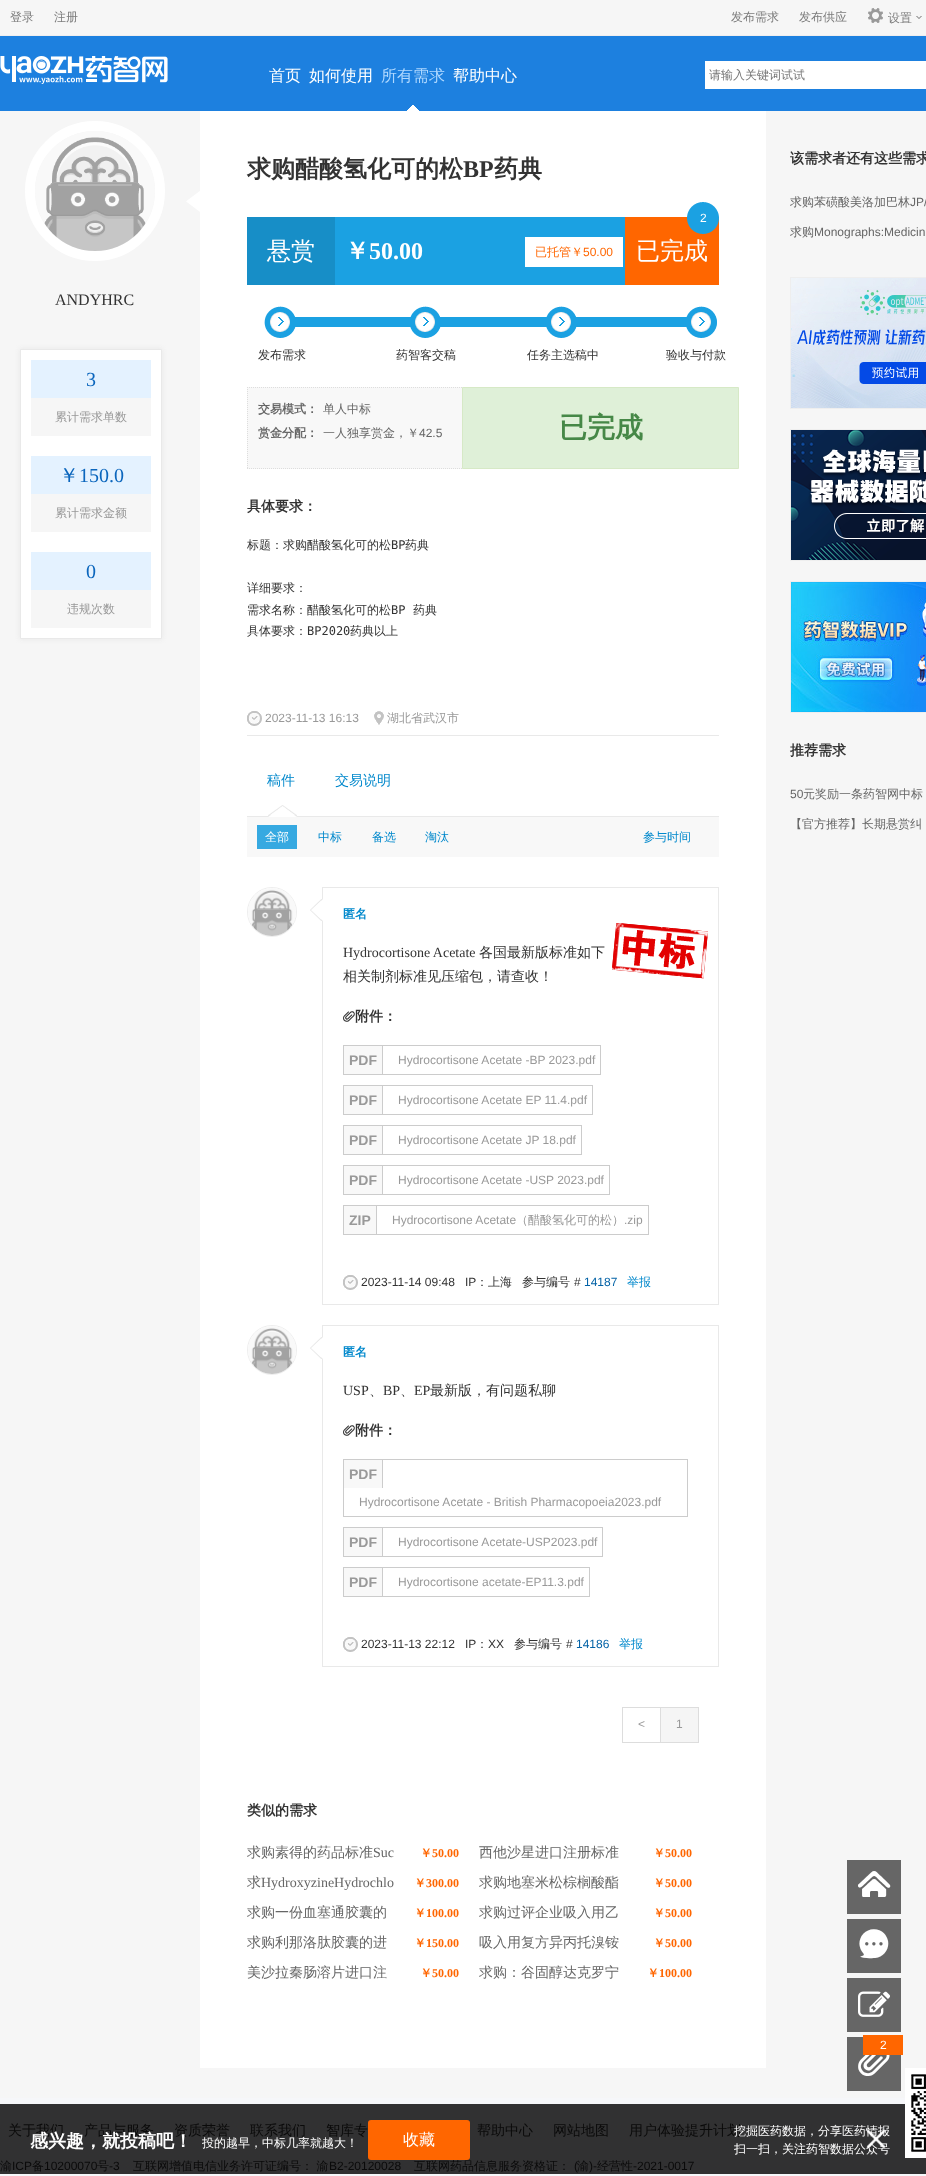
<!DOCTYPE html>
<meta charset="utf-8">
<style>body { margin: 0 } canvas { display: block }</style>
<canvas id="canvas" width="926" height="2176"></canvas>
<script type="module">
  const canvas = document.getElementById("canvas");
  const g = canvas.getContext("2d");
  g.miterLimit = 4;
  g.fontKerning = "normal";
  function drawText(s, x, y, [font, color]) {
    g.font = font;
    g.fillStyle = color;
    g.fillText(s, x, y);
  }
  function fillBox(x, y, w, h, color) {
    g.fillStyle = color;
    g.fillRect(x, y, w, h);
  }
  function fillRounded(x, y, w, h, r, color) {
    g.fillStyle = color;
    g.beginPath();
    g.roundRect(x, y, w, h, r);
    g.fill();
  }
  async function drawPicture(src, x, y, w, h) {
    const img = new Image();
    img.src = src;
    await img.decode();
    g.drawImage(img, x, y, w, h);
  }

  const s1 = ["500 12px WenQuanYi Zen Hei", "#7C7C7C"];
  const s2 = ["16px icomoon", "#999999"];
  const s3 = ["500 16px WenQuanYi Zen Hei", "#FFFFFF"];
  const s4 = ["500 16px WenQuanYi Zen Hei", "#AFD8FF"];
  const s5 = ["500 12px WenQuanYi Zen Hei", "#757575"];
  const s6 = ["16px Liberation Serif", "#333333"];
  const s7 = ["20px Liberation Serif", "#0B66BD"];
  const s8 = ["500 12px WenQuanYi Zen Hei", "#999999"];
  const s9 = ["500 20px WenQuanYi Zen Hei", "#0B66BD"];
  const s10 = ["bold 24px WenQuanYi Zen Hei", "#333333"];
  const s11 = ["bold 24px Liberation Serif", "#333333"];
  const s12 = ["12px Liberation Sans", "#FFFFFF"];
  const s13 = ["500 24px WenQuanYi Zen Hei", "#FFFFFF"];
  const s14 = ["bold 24px WenQuanYi Zen Hei", "#FFFFFF"];
  const s15 = ["bold 24px Liberation Serif", "#FFFFFF"];
  const s16 = ["500 12px WenQuanYi Zen Hei", "#FF6600"];
  const s17 = ["12px Liberation Sans", "#FF6600"];
  const s18 = ["500 12px WenQuanYi Zen Hei", "#333333"];
  const s19 = ["bold 12px WenQuanYi Zen Hei", "#666666"];
  const s20 = ["500 12px WenQuanYi Zen Hei", "#666666"];
  const s21 = ["12px Liberation Sans", "#666666"];
  const s22 = ["bold 28px WenQuanYi Zen Hei", "#468847"];
  const s23 = ["bold 14px WenQuanYi Zen Hei", "#333333"];
  const s24 = ["12px DejaVu Sans Mono", "#333333"];
  const s25 = ["12px Liberation Sans", "#999999"];
  const s26 = ["500 14px WenQuanYi Zen Hei", "#0088CC"];
  const s27 = ["500 12px WenQuanYi Zen Hei", "#FFFFFF"];
  const s28 = ["500 12px WenQuanYi Zen Hei", "#0088CC"];
  const s29 = ["bold 12px WenQuanYi Zen Hei", "#0088CC"];
  const s30 = ["14px Liberation Serif", "#333333"];
  const s31 = ["500 14px WenQuanYi Zen Hei", "#333333"];
  const s32 = ["12px icomoon", "#333333"];
  const s33 = ["bold 14px Liberation Sans", "#999999"];
  const s34 = ["12px Liberation Sans", "#333333"];
  const s35 = ["12px Liberation Sans", "#0362A6"];
  const s36 = ["500 14px WenQuanYi Zen Hei", "#666666"];
  const s37 = ["14px Liberation Serif", "#666666"];
  const s38 = ["bold 12px WenQuanYi Zen Hei", "#FF6600"];
  const s39 = ["bold 12px Liberation Serif", "#FF6600"];
  const s40 = ["32px icomoon", "#FFFFFF"];
  const s41 = ["500 14px WenQuanYi Zen Hei", "#0A0A0A"];
  const s42 = ["500 12px WenQuanYi Zen Hei", "#0A0A0A"];
  const s43 = ["12px Liberation Sans", "#0A0A0A"];
  const s44 = ["bold 18px WenQuanYi Zen Hei", "#FFFFFF"];

  fillBox(0, 0, 926, 2176, "#F6F6F6");
  fillBox(0, 35, 926, 1, "#F0EEEE");
  drawText("登录", 10, 21, s1);
  drawText("注册", 54, 21, s1);
  drawText("发布需求", 731, 21, s1);
  drawText("发布供应", 799, 21, s1);
  drawText("㕯", 867, 22, s2);
  drawText("设置", 888, 22, s1);
  g.fillStyle = "#6C6C6C";
  g.beginPath();
  g.moveTo(916, 16);
  g.lineTo(922, 16);
  g.lineTo(919, 19);
  g.closePath();
  g.fill();
  g.fillStyle = "#F5F5F5";
  g.beginPath();
  g.moveTo(916, 15);
  g.lineTo(922, 15);
  g.lineTo(919, 18);
  g.closePath();
  g.fill();
  fillBox(0, 36, 926, 75, "#1D80DF");
  await drawPicture("pic1.png", 0, 56, 168, 28);
  drawText("首页", 269, 81, s3);
  drawText("如何使用", 309, 81, s3);
  await drawPicture("pic2.png", 407, 105, 12, 6);
  drawText("所有需求", 381, 81, s4);
  drawText("帮助中心", 453, 81, s3);
  fillBox(705, 61, 221, 28, "#FFFFFF");
  drawText("请输入关键词试试", 709, 79, s5);
  g.beginPath();
  g.arc(95, 191, 65, 0, Math.PI * 2);
  g.strokeStyle = "#FFFFFF";
  g.lineWidth = 10;
  g.stroke();
  await drawPicture("pic3.png", 35, 131, 120, 120);
  await drawPicture("pic4.png", 186, 190, 14, 22);
  drawText("ANDYHRC", 55, 305, s6);
  g.fillStyle = "#E6E6E6";
  g.filter = "blur(2.5px)";
  g.beginPath();
  g.rect(20, 349, 142, 290);
  g.fill();
  g.filter = "none";
  g.fillStyle = "#FFFFFF";
  g.beginPath();
  g.rect(20.5, 349.5, 141, 289);
  g.fill();
  g.strokeStyle = "#E9E9E9";
  g.lineWidth = 1;
  g.stroke();
  fillBox(31, 360, 120, 38, "#E4F2FF");
  drawText("3", 86, 386, s7);
  fillBox(31, 398, 120, 38, "#F6F6F6");
  drawText("累计需求单数", 55, 421, s8);
  fillBox(31, 456, 120, 38, "#E4F2FF");
  drawText("￥", 59, 482, s9);
  drawText("150.0", 79, 482, s7);
  fillBox(31, 494, 120, 38, "#F6F6F6");
  drawText("累计需求金额", 55, 517, s8);
  fillBox(31, 552, 120, 38, "#E4F2FF");
  drawText("0", 86, 578, s7);
  fillBox(31, 590, 120, 38, "#F6F6F6");
  drawText("违规次数", 67, 613, s8);
  fillBox(200, 111, 566, 1957, "#FFFFFF");
  drawText("求购醋酸氢化可的松", 247, 177, s10);
  drawText("BP", 463, 177, s11);
  drawText("药典", 494, 177, s10);
  fillBox(625, 217, 94, 68, "#FF6600");
  await drawPicture("pic5.png", 687, 202, 32, 32);
  drawText("2", 700, 222, s12);
  fillBox(335, 217, 290, 68, "#1BA1E2");
  fillBox(247, 217, 88, 68, "#178EC7");
  drawText("悬赏", 267, 259, s13);
  drawText("￥", 345, 259, s14);
  drawText("50.00", 369, 259, s15);
  fillBox(525, 237, 98, 30, "#FFFFFF");
  drawText("已托管￥", 535, 256, s16);
  drawText("50.00", 583, 256, s17);
  drawText("已完成", 636, 259, s13);
  fillBox(295, 317, 116, 10, "#1BA1E2");
  await drawPicture("pic6.png", 264, 306, 32, 32);
  drawText("发布需求", 258, 359, s18);
  fillBox(440, 317, 107, 10, "#1BA1E2");
  await drawPicture("pic7.png", 410, 306, 31, 32);
  drawText("药智客交稿", 396, 359, s18);
  fillBox(576, 317, 111, 10, "#1BA1E2");
  await drawPicture("pic7.png", 546, 306, 31, 32);
  drawText("任务主选稿中", 527, 359, s18);
  await drawPicture("pic8.png", 686, 306, 31, 32);
  drawText("验收与付款", 666, 359, s18);
  fillBox(247, 387, 215, 82, "#F8F8F8");
  g.beginPath();
  g.moveTo(247, 387.5);
  g.lineTo(559, 387.5);
  g.strokeStyle = "#DDDDDD";
  g.setLineDash([1, 1]);
  g.stroke();
  g.beginPath();
  g.moveTo(247, 468.5);
  g.lineTo(559, 468.5);
  g.stroke();
  g.beginPath();
  g.moveTo(247.5, 387);
  g.lineTo(247.5, 469);
  g.stroke();
  drawText("交易模式：", 258, 413, s19);
  drawText("单人中标", 323, 413, s20);
  drawText("赏金分配：", 258, 437, s19);
  drawText("一人独享赏金，￥", 323, 437, s20);
  drawText("42.5", 419, 437, s21);
  g.fillStyle = "#DFF0D8";
  g.beginPath();
  g.rect(462.5, 387.5, 276, 81);
  g.fill();
  g.strokeStyle = "#D6E9C6";
  g.setLineDash([]);
  g.stroke();
  drawText("已完成", 559, 437, s22);
  drawText("具体要求：", 247, 511, s23);
  drawText("标题：求购醋酸氢化可的松", 247, 549, s18);
  drawText("BP", 391, 549, s24);
  drawText("药典", 405, 549, s18);
  drawText("详细要求：", 247, 592, s18);
  drawText("需求名称：醋酸氢化可的松", 247, 614, s18);
  drawText("BP", 391, 614, s24);
  drawText("药典", 413, 614, s18);
  drawText("具体要求：", 247, 635, s18);
  drawText("BP2020", 307, 635, s24);
  drawText("药典以上", 350, 635, s18);
  fillBox(247, 735, 472, 1, "#E9E9E9");
  await drawPicture("pic9.png", 247, 711, 15, 15);
  drawText("2023-11-13 16:13", 265, 722, s25);
  await drawPicture("pic10.png", 374, 711, 10, 14);
  drawText("湖北省武汉市", 387, 722, s8);
  drawText("稿件", 267, 785, s26);
  drawText("交易说明", 335, 785, s26);
  fillBox(247, 816, 472, 1, "#E9E9E9");
  await drawPicture("pic11.png", 268, 805, 29, 12);
  fillBox(247, 817, 472, 40, "#F8F8F8");
  fillBox(257, 825, 40, 24, "#36A9E1");
  drawText("全部", 265, 841, s27);
  drawText("中标", 318, 841, s28);
  drawText("备选", 372, 841, s28);
  drawText("淘汰", 425, 841, s28);
  drawText("参与时间", 643, 841, s28);
  g.beginPath();
  g.arc(272, 912, 24.5, 0, Math.PI * 2);
  g.strokeStyle = "#EEEEEE";
  g.stroke();
  await drawPicture("pic12.png", 248, 888, 48, 48);
  g.strokeStyle = "#E9E9E9";
  g.strokeRect(322.5, 887.5, 396, 417);
  await drawPicture("pic13.png", 310, 899, 13, 22);
  drawText("匿名", 343, 918, s29);
  drawText("Hydrocortisone Acetate", 343, 957, s30);
  drawText("各国最新版标准如下", 479, 957, s31);
  drawText("相关制剂标准见压缩包，请查收！", 343, 981, s31);
  drawText("㖌", 343, 1021, s32);
  drawText("附件：", 355, 1021, s23);
  g.strokeStyle = "#CCCCCC";
  g.strokeRect(343.5, 1045.5, 257, 29);
  fillBox(344, 1046, 38, 28, "#F8F8F8");
  fillBox(382, 1046, 1, 28, "#CCCCCC");
  drawText("PDF", 349, 1065, s33);
  drawText("Hydrocortisone Acetate -BP 2023.pdf", 398, 1064, s25);
  g.strokeRect(343.5, 1085.5, 249, 29);
  fillBox(344, 1086, 38, 28, "#F8F8F8");
  fillBox(382, 1086, 1, 28, "#CCCCCC");
  drawText("PDF", 349, 1105, s33);
  drawText("Hydrocortisone Acetate EP 11.4.pdf", 398, 1104, s25);
  g.strokeRect(343.5, 1125.5, 238, 29);
  fillBox(344, 1126, 38, 28, "#F8F8F8");
  fillBox(382, 1126, 1, 28, "#CCCCCC");
  drawText("PDF", 349, 1145, s33);
  drawText("Hydrocortisone Acetate JP 18.pdf", 398, 1144, s25);
  g.strokeRect(343.5, 1165.5, 266, 29);
  fillBox(344, 1166, 38, 28, "#F8F8F8");
  fillBox(382, 1166, 1, 28, "#CCCCCC");
  drawText("PDF", 349, 1185, s33);
  drawText("Hydrocortisone Acetate -USP 2023.pdf", 398, 1184, s25);
  g.strokeRect(343.5, 1205.5, 305, 29);
  fillBox(344, 1206, 32, 28, "#F8F8F8");
  fillBox(376, 1206, 1, 28, "#CCCCCC");
  drawText("ZIP", 349, 1225, s33);
  drawText("Hydrocortisone Acetate", 392, 1224, s25);
  drawText("（醋酸氢化可的松）", 516, 1224, s8);
  drawText(".zip", 624, 1224, s25);
  await drawPicture("pic9.png", 343, 1275, 15, 15);
  drawText("2023-11-14 09:48", 361, 1286, s34);
  drawText("IP", 465, 1286, s34);
  drawText("：上海", 476, 1286, s18);
  drawText("参与编号", 522, 1286, s18);
  drawText("#", 574, 1286, s34);
  drawText("14187", 584, 1286, s35);
  drawText("举报", 627, 1286, s28);
  await drawPicture("pic14.png", 611, 923, 97, 56);
  g.beginPath();
  g.arc(272, 1350, 24.5, 0, Math.PI * 2);
  g.strokeStyle = "#EEEEEE";
  g.stroke();
  await drawPicture("pic12.png", 248, 1326, 48, 48);
  g.strokeStyle = "#E9E9E9";
  g.strokeRect(322.5, 1325.5, 396, 341);
  await drawPicture("pic13.png", 310, 1337, 13, 22);
  drawText("匿名", 343, 1356, s29);
  drawText("USP", 343, 1395, s30);
  drawText("、", 369, 1395, s31);
  drawText("BP", 383, 1395, s30);
  drawText("、", 400, 1395, s31);
  drawText("EP", 414, 1395, s30);
  drawText("最新版，有问题私聊", 430, 1395, s31);
  drawText("㖌", 343, 1435, s32);
  drawText("附件：", 355, 1435, s23);
  g.strokeStyle = "#CCCCCC";
  g.strokeRect(343.5, 1459.5, 344, 57);
  fillBox(344, 1460, 38, 28, "#F8F8F8");
  fillBox(382, 1460, 1, 28, "#CCCCCC");
  drawText("PDF", 349, 1479, s33);
  drawText("Hydrocortisone Acetate - British Pharmacopoeia2023.pdf", 359, 1506, s25);
  g.strokeRect(343.5, 1527.5, 259, 29);
  fillBox(344, 1528, 38, 28, "#F8F8F8");
  fillBox(382, 1528, 1, 28, "#CCCCCC");
  drawText("PDF", 349, 1547, s33);
  drawText("Hydrocortisone Acetate-USP2023.pdf", 398, 1546, s25);
  g.strokeRect(343.5, 1567.5, 246, 29);
  fillBox(344, 1568, 38, 28, "#F8F8F8");
  fillBox(382, 1568, 1, 28, "#CCCCCC");
  drawText("PDF", 349, 1587, s33);
  drawText("Hydrocortisone acetate-EP11.3.pdf", 398, 1586, s25);
  await drawPicture("pic9.png", 343, 1637, 15, 15);
  drawText("2023-11-13 22:12", 361, 1648, s34);
  drawText("IP", 465, 1648, s34);
  drawText("：", 476, 1648, s18);
  drawText("XX", 488, 1648, s34);
  drawText("参与编号", 514, 1648, s18);
  drawText("#", 566, 1648, s34);
  drawText("14186", 576, 1648, s35);
  drawText("举报", 619, 1648, s28);
  g.strokeStyle = "#DDDDDD";
  g.strokeRect(622.5, 1707.5, 38, 35);
  drawText("<", 638, 1728, s25);
  fillBox(661, 1708, 37, 34, "#F5F5F5");
  fillBox(661, 1707, 38, 1, "#DDDDDD");
  fillBox(698, 1707, 1, 36, "#DDDDDD");
  fillBox(661, 1742, 38, 1, "#DDDDDD");
  drawText("1", 676, 1728, s25);
  drawText("类似的需求", 247, 1815, s23);
  drawText("求购素得的药品标准", 247, 1857, s36);
  drawText("Suc", 373, 1857, s37);
  drawText("￥", 420, 1857, s38);
  drawText("50.00", 432, 1857, s39);
  drawText("西他沙星进口注册标准", 479, 1857, s36);
  drawText("￥", 653, 1857, s38);
  drawText("50.00", 665, 1857, s39);
  drawText("求", 247, 1887, s36);
  drawText("HydroxyzineHydrochlo", 261, 1887, s37);
  drawText("￥", 414, 1887, s38);
  drawText("300.00", 426, 1887, s39);
  drawText("求购地塞米松棕榈酸酯", 479, 1887, s36);
  drawText("￥", 653, 1887, s38);
  drawText("50.00", 665, 1887, s39);
  drawText("求购一份血塞通胶囊的", 247, 1917, s36);
  drawText("￥", 414, 1917, s38);
  drawText("100.00", 426, 1917, s39);
  drawText("求购过评企业吸入用乙", 479, 1917, s36);
  drawText("￥", 653, 1917, s38);
  drawText("50.00", 665, 1917, s39);
  drawText("求购利那洛肽胶囊的进", 247, 1947, s36);
  drawText("￥", 414, 1947, s38);
  drawText("150.00", 426, 1947, s39);
  drawText("吸入用复方异丙托溴铵", 479, 1947, s36);
  drawText("￥", 653, 1947, s38);
  drawText("50.00", 665, 1947, s39);
  drawText("美沙拉秦肠溶片进口注", 247, 1977, s36);
  drawText("￥", 420, 1977, s38);
  drawText("50.00", 432, 1977, s39);
  drawText("求购：谷固醇达克罗宁", 479, 1977, s36);
  drawText("￥", 647, 1977, s38);
  drawText("100.00", 659, 1977, s39);
  drawText("该需求者还有这些需求", 790, 163, s23);
  drawText("求购苯磺酸美洛加巴林", 790, 206, s20);
  drawText("JP/", 910, 206, s21);
  drawText("求购", 790, 236, s20);
  drawText("Monographs:Medicin", 814, 236, s21);
  g.strokeStyle = "#EEEEEE";
  g.strokeRect(790.5, 277.5, 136, 131);
  await drawPicture("pic15.png", 791, 278, 135, 130);
  g.strokeRect(790.5, 429.5, 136, 131);
  await drawPicture("pic16.png", 791, 430, 135, 130);
  g.strokeRect(790.5, 581.5, 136, 131);
  await drawPicture("pic17.png", 791, 582, 135, 130);
  drawText("推荐需求", 790, 755, s23);
  drawText("50", 790, 798, s21);
  drawText("元奖励一条药智网中标", 803, 798, s20);
  drawText("【官方推荐】长期悬赏纠", 790, 828, s20);
  fillBox(847, 1860, 54, 54, "#666666");
  drawText("㕜", 858, 1897, s40);
  fillBox(847, 1919, 54, 54, "#666666");
  drawText("㒗", 858, 1956, s40);
  fillBox(847, 1978, 54, 54, "#666666");
  await drawPicture("pic18.png", 858, 1991, 32, 26);
  fillBox(847, 2037, 54, 54, "#666666");
  drawText("㖌", 858, 2074, s40);
  fillBox(863, 2035, 40, 20, "#FF6600");
  drawText("2", 880, 2049, s12);
  fillBox(0, 2098, 926, 78, "#F6F7FA");
  fillBox(0, 2104, 926, 70, "#313132");
  drawText("关于我们", 8, 2135, s41);
  drawText("产品与服务", 84, 2135, s41);
  drawText("资质荣誉", 174, 2135, s41);
  drawText("联系我们", 250, 2135, s41);
  drawText("智库专", 326, 2135, s41);
  drawText("帮助中心", 477, 2135, s41);
  drawText("网站地图", 553, 2135, s41);
  drawText("用户体验提升计划", 629, 2135, s41);
  drawText("渝", 0, 2170, s42);
  drawText("ICP", 12, 2170, s43);
  drawText("备", 32, 2170, s42);
  drawText("10200070", 44, 2170, s43);
  drawText("号", 97, 2170, s42);
  drawText("-3", 109, 2170, s43);
  drawText("互联网增值电信业务许可证编号： 渝", 133, 2170, s42);
  drawText("B2-20120028", 329, 2170, s43);
  drawText("互联网药品信息服务资格证：", 414, 2170, s42);
  drawText("(", 574, 2170, s43);
  drawText("渝", 577, 2170, s42);
  drawText(")-", 589, 2170, s43);
  drawText("经营性", 597, 2170, s42);
  drawText("-2021-0017", 633, 2170, s43);
  drawText("感兴趣，就投稿吧！", 30, 2147, s44);
  drawText("投的越早，中标几率就越大！", 202, 2147, s27);
  fillRounded(368, 2120, 102, 40, 3, "#FF6600");
  drawText("收藏", 403, 2145, s3);
  await drawPicture("pic20.png", 866, 2129, 20, 20);
  drawText("挖掘医药数据，分享医药情报", 734, 2135, s27);
  drawText("扫一扫，关注药智数据公众号", 734, 2153, s27);
  await drawPicture("pic19.png", 905, 2068, 21, 90);
</script>
